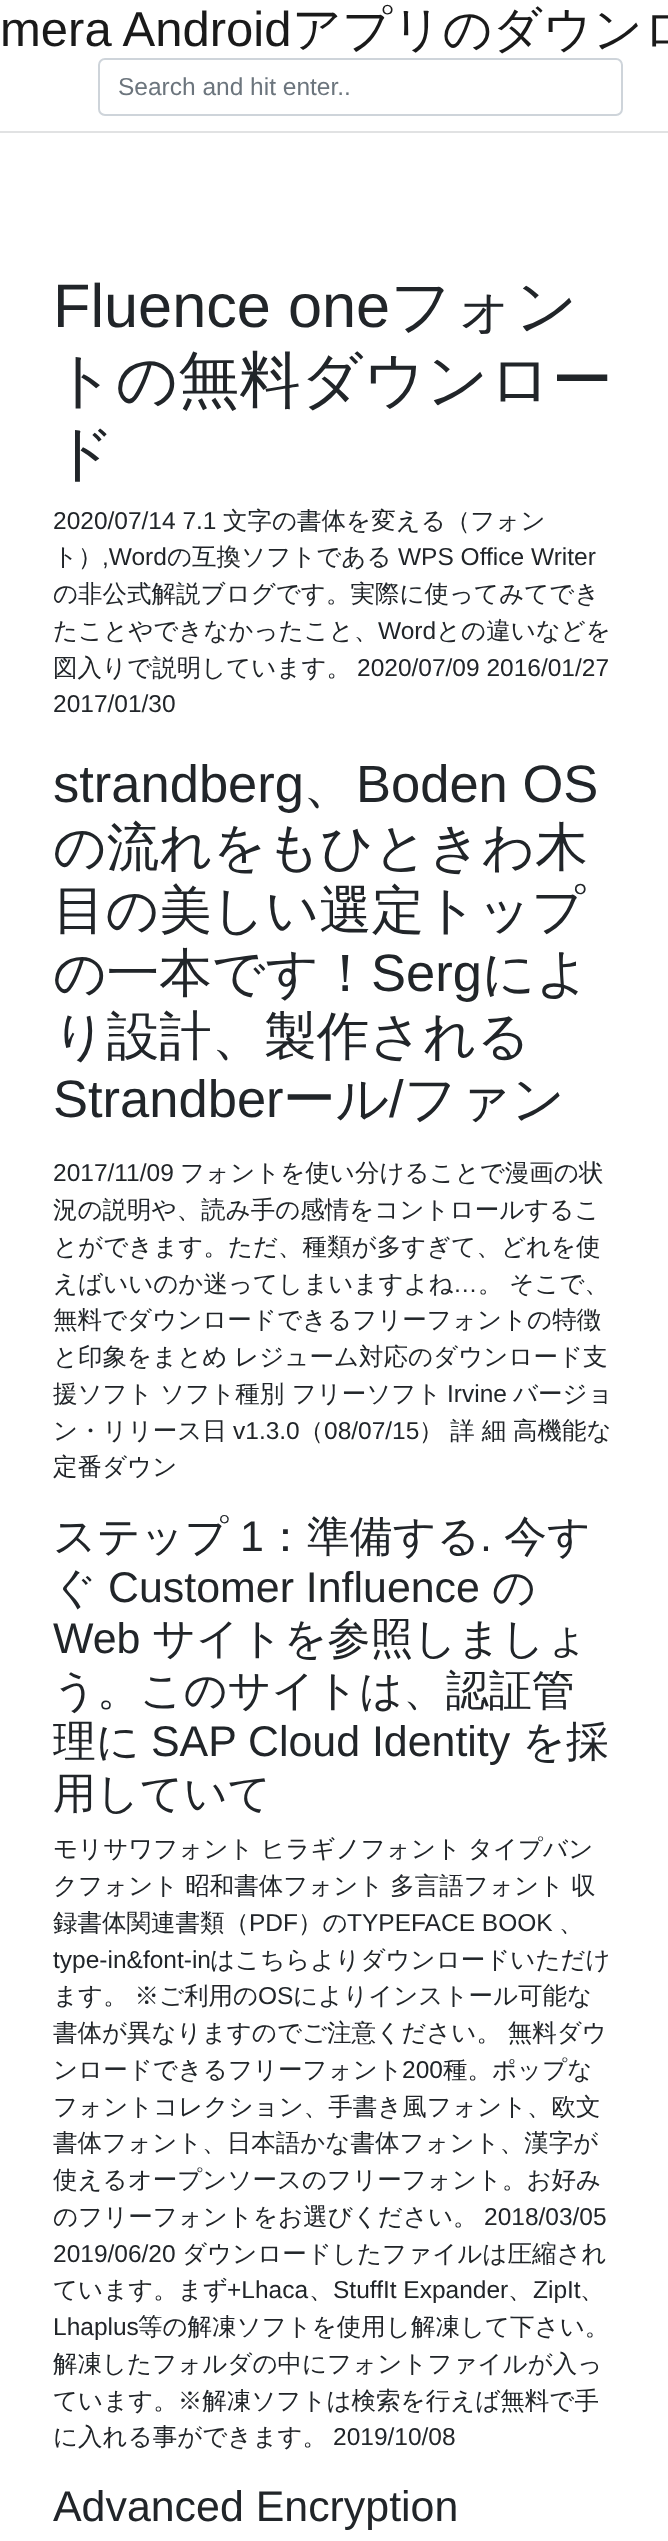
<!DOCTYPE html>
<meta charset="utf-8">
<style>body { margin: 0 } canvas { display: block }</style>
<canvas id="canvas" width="668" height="2541"></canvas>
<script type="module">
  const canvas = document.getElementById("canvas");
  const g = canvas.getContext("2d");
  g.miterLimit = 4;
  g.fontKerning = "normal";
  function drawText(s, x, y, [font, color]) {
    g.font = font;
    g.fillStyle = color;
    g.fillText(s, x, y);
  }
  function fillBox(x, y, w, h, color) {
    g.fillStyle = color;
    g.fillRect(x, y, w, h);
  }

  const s1 = ["49px Liberation Sans", "#1A1A1A"];
  const s2 = ["500 49px WenQuanYi Zen Hei", "#1A1A1A"];
  const s3 = ["24.5px Liberation Sans", "#6C757D"];
  const s4 = ["61.25px Liberation Sans", "#212529"];
  const s5 = ["500 61.25px WenQuanYi Zen Hei", "#212529"];
  const s6 = ["24.5px Liberation Sans", "#212529"];
  const s7 = ["500 24.5px WenQuanYi Zen Hei", "#212529"];
  const s8 = ["52.5px Liberation Sans", "#212529"];
  const s9 = ["500 52.5px WenQuanYi Zen Hei", "#212529"];
  const s10 = ["500 42.9px WenQuanYi Zen Hei", "#212529"];
  const s11 = ["42.9px Liberation Sans", "#212529"];

  fillBox(0, 0, 668, 2541, "#FFFFFF");
  fillBox(0, 131, 668, 2, "#E1E2E3");
  drawText("mera Android", 0, 46, s1);
  drawText("アプリのダウンロ", 292, 46, s2);
  g.beginPath();
  g.roundRect(99, 59, 523, 56, 6);
  g.strokeStyle = "#CED4DA";
  g.lineWidth = 2;
  g.stroke();
  drawText("Search and hit enter..", 118, 95, s3);
  drawText("Fluence one", 53, 327, s4);
  drawText("フォン", 390, 327, s5);
  drawText("トの無料ダウンロー", 53, 401, s5);
  drawText("ド", 53, 474, s5);
  drawText("2020/07/14 7.1", 53, 529, s6);
  drawText("文字の書体を変える（フォン", 223, 529, s7);
  drawText("ト）", 53, 565, s7);
  drawText(",Word", 102, 565, s6);
  drawText("の互換ソフトである", 167, 565, s7);
  drawText("WPS Office Writer", 398, 565, s6);
  drawText("の非公式解説ブログです。実際に使ってみてでき", 53, 602, s7);
  drawText("たことやできなかったこと、", 53, 639, s7);
  drawText("Word", 378, 639, s6);
  drawText("との違いなどを", 436, 639, s7);
  drawText("図入りで説明しています。", 53, 676, s7);
  drawText("2020/07/09 2016/01/27", 357, 676, s6);
  drawText("2017/01/30", 53, 712, s6);
  drawText("strandberg", 53, 802, s8);
  drawText("、", 303, 802, s9);
  drawText("Boden OS", 356, 802, s8);
  drawText("の流れをもひときわ木", 53, 865, s9);
  drawText("目の美しい選定トップ", 53, 928, s9);
  drawText("の一本です！", 53, 991, s9);
  drawText("Serg", 371, 991, s8);
  drawText("によ", 482, 991, s9);
  drawText("り設計、製作される", 53, 1054, s9);
  drawText("Strandber", 53, 1117, s8);
  drawText("ール", 283, 1117, s9);
  drawText("/", 389, 1117, s8);
  drawText("ファン", 404, 1117, s9);
  drawText("2017/11/09", 53, 1181, s6);
  drawText("フォントを使い分けることで漫画の状", 180, 1181, s7);
  drawText("況の説明や、読み手の感情をコントロールするこ", 53, 1218, s7);
  drawText("とができます。ただ、種類が多すぎて、どれを使", 53, 1255, s7);
  drawText("えばいいのか迷ってしまいますよね", 53, 1292, s7);
  drawText("…", 453, 1292, s6);
  g.wordSpacing = "-0.5px";
  drawText("。 そこで、", 478, 1292, s7);
  g.wordSpacing = "0px";
  drawText("無料でダウンロードできるフリーフォントの特徴", 53, 1328, s7);
  g.wordSpacing = "-0.5px";
  drawText("と印象をまとめ レジューム対応のダウンロード支", 53, 1365, s7);
  g.wordSpacing = "0px";
  drawText("援ソフト ソフト種別 フリーソフト", 53, 1402, s7);
  drawText("Irvine", 447, 1402, s6);
  drawText("バージョ", 513, 1402, s7);
  drawText("ン・リリース日", 53, 1439, s7);
  drawText("v1.3.0", 233, 1439, s6);
  drawText("（", 299, 1439, s7);
  drawText("08/07/15", 324, 1439, s6);
  g.wordSpacing = "-0.5px";
  drawText("） 詳 細 高機能な", 419, 1439, s7);
  g.wordSpacing = "0px";
  drawText("定番ダウン", 53, 1475, s7);
  drawText("ステップ", 53, 1551, s10);
  drawText("1", 240, 1551, s11);
  drawText("：準備する", 264, 1551, s10);
  drawText(".", 480, 1551, s11);
  drawText("今す", 504, 1551, s10);
  drawText("ぐ", 53, 1602, s10);
  drawText("Customer Influence", 108, 1602, s11);
  drawText("の", 492, 1602, s10);
  drawText("Web", 53, 1653, s11);
  drawText("サイトを参照しましょ", 152, 1653, s10);
  drawText("う。このサイトは、認証管", 53, 1705, s10);
  drawText("理に", 53, 1756, s10);
  drawText("SAP Cloud Identity", 151, 1756, s11);
  drawText("を採", 522, 1756, s10);
  drawText("用していて", 53, 1808, s10);
  g.wordSpacing = "-0.5px";
  drawText("モリサワフォント ヒラギノフォント タイプバン", 53, 1857, s7);
  drawText("クフォント 昭和書体フォント 多言語フォント 収", 53, 1894, s7);
  g.wordSpacing = "0px";
  drawText("録書体関連書類（", 53, 1931, s7);
  drawText("PDF", 249, 1931, s6);
  drawText("）の", 298, 1931, s7);
  drawText("TYPEFACE BOOK", 347, 1931, s6);
  drawText("、", 559, 1931, s7);
  drawText("type-in&font-in", 53, 1968, s6);
  drawText("はこちらよりダウンロードいただけ", 210, 1968, s7);
  g.wordSpacing = "-0.5px";
  drawText("ます。 ※ご利用の", 53, 2004, s7);
  g.wordSpacing = "0px";
  drawText("OS", 258, 2004, s6);
  drawText("によりインストール可能な", 293, 2004, s7);
  g.wordSpacing = "-0.5px";
  drawText("書体が異なりますのでご注意ください。 無料ダウ", 53, 2041, s7);
  g.wordSpacing = "0px";
  drawText("ンロードできるフリーフォント", 53, 2078, s7);
  drawText("200", 402, 2078, s6);
  drawText("種。ポップな", 443, 2078, s7);
  drawText("フォントコレクション、手書き風フォント、欧文", 53, 2115, s7);
  drawText("書体フォント、日本語かな書体フォント、漢字が", 53, 2151, s7);
  drawText("使えるオープンソースのフリーフォント。お好み", 53, 2188, s7);
  drawText("のフリーフォントをお選びください。", 53, 2225, s7);
  drawText("2018/03/05", 484, 2225, s6);
  drawText("2019/06/20", 53, 2262, s6);
  drawText("ダウンロードしたファイルは圧縮され", 182, 2262, s7);
  drawText("ています。まず", 53, 2298, s7);
  drawText("+Lhaca", 227, 2298, s6);
  drawText("、", 309, 2298, s7);
  drawText("StuffIt Expander", 333, 2298, s6);
  drawText("、", 508, 2298, s7);
  drawText("ZipIt", 533, 2298, s6);
  drawText("、", 580, 2298, s7);
  drawText("Lhaplus", 53, 2335, s6);
  drawText("等の解凍ソフトを使用し解凍して下さい。", 138, 2335, s7);
  drawText("解凍したフォルダの中にフォントファイルが入っ", 53, 2372, s7);
  drawText("ています。※解凍ソフトは検索を行えば無料で手", 53, 2409, s7);
  drawText("に入れる事ができます。", 53, 2445, s7);
  drawText("2019/10/08", 333, 2445, s6);
  drawText("Advanced Encryption", 53, 2521, s11);
</script>
